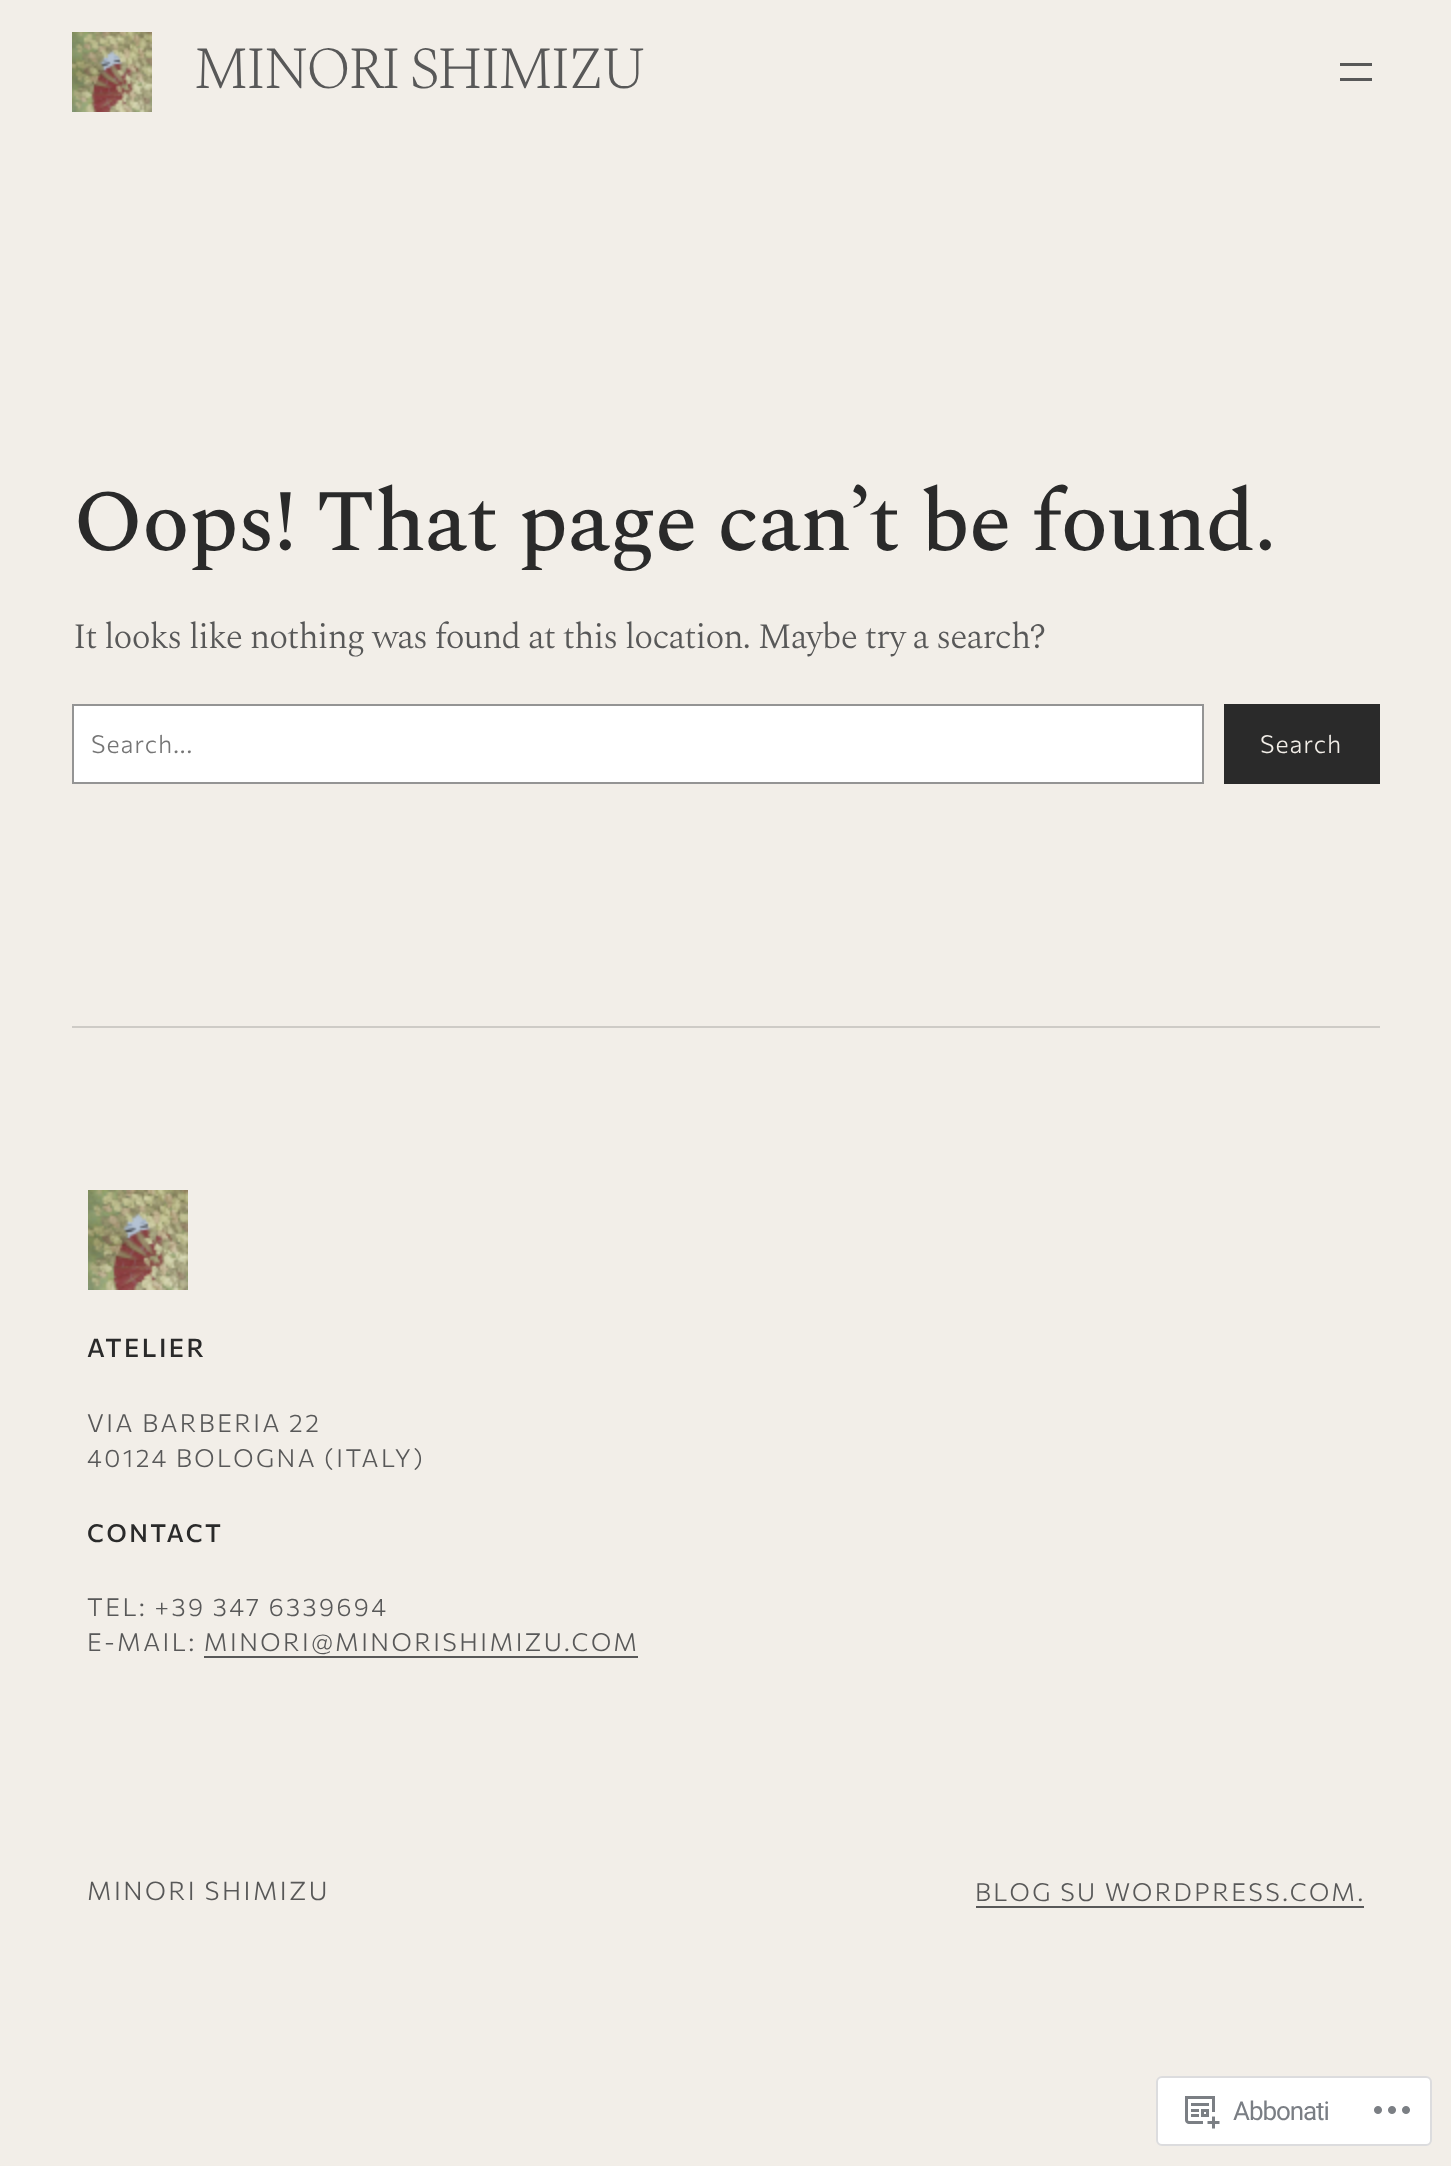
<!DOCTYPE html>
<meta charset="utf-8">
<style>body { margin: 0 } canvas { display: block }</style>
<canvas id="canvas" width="1451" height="2166"></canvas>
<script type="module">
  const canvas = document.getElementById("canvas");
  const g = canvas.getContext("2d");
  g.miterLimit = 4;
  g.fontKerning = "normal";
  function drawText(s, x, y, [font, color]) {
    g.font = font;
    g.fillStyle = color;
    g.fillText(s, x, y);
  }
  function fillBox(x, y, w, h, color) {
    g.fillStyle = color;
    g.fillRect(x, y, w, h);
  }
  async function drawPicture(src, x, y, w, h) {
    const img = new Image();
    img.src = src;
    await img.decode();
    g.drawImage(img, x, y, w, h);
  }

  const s1 = ["200 59.75px Spectral", "#585858"];
  const s2 = ["500 87.4px Spectral", "#2A2A2A"];
  const s3 = ["300 35.7px Spectral", "#585858"];
  const s4 = ["300 24.75px Commissioner", "#757575"];
  const s5 = ["300 24.75px Commissioner", "#F2EEE8"];
  const s6 = ["500 25.5px Commissioner", "#2A2A2A"];
  const s7 = ["300 24.75px Commissioner", "#585858"];
  const s8 = ["500 24.75px Commissioner", "#2A2A2A"];
  const s9 = ["300 25.5px Commissioner", "#585858"];
  const s10 = ["26px Roboto", "#7A7E84"];

  fillBox(0, 0, 1451, 2166, "#F2EEE8");
  await drawPicture("pic1.png", 72, 32, 80, 80);
  g.letterSpacing = "-3.6px";
  drawText("MINORI SHIMIZU", 193, 88, s1);
  fillBox(1340, 63, 32, 3, "#585858");
  fillBox(1340, 78, 32, 3, "#585858");
  g.letterSpacing = "-1.07px";
  drawText("Oops! That page can’t be found.", 73, 550, s2);
  drawText("It looks like nothing was found at this location. Maybe try a search?", 73, 648, s3);
  g.fillStyle = "#FFFFFF";
  g.beginPath();
  g.rect(73, 705, 1130, 78);
  g.fill();
  g.strokeStyle = "#949494";
  g.lineWidth = 2;
  g.stroke();
  g.letterSpacing = "1px";
  drawText("Search...", 91, 753, s4);
  fillBox(1224, 704, 156, 80, "#2A2A2A");
  drawText("Search", 1260, 753, s5);
  fillBox(72, 1026, 1308, 2, "#CECBC6");
  await drawPicture("pic2.png", 88, 1190, 100, 100);
  g.letterSpacing = "2.5px";
  drawText("ATELIER", 87, 1357, s6);
  drawText("VIA BARBERIA 22", 87, 1432, s7);
  drawText("40124 BOLOGNA (ITALY)", 87, 1467, s7);
  drawText("CONTACT", 87, 1542, s8);
  drawText("TEL: +39 347 6339694", 87, 1616, s7);
  drawText("E-MAIL: MINORI@MINORISHIMIZU.COM", 87, 1651, s7);
  fillBox(204, 1656, 434, 2, "#585858");
  drawText("MINORI SHIMIZU", 87, 1900, s9);
  drawText("BLOG SU WORDPRESS.COM.", 975, 1901, s7);
  fillBox(976, 1906, 388, 2, "#585858");
  g.fillStyle = "#FFFFFF";
  g.beginPath();
  g.roundRect(1157, 2077, 274, 68, 5);
  g.fill();
  g.strokeStyle = "#DCDCDE";
  g.stroke();
  await drawPicture("pic3.png", 1185, 2096, 35, 33);
  g.letterSpacing = "-1.07px";
  drawText("Abbonati", 1233, 2120, s10);
  await drawPicture("pic4.png", 1374, 2106, 36, 8);
</script>
